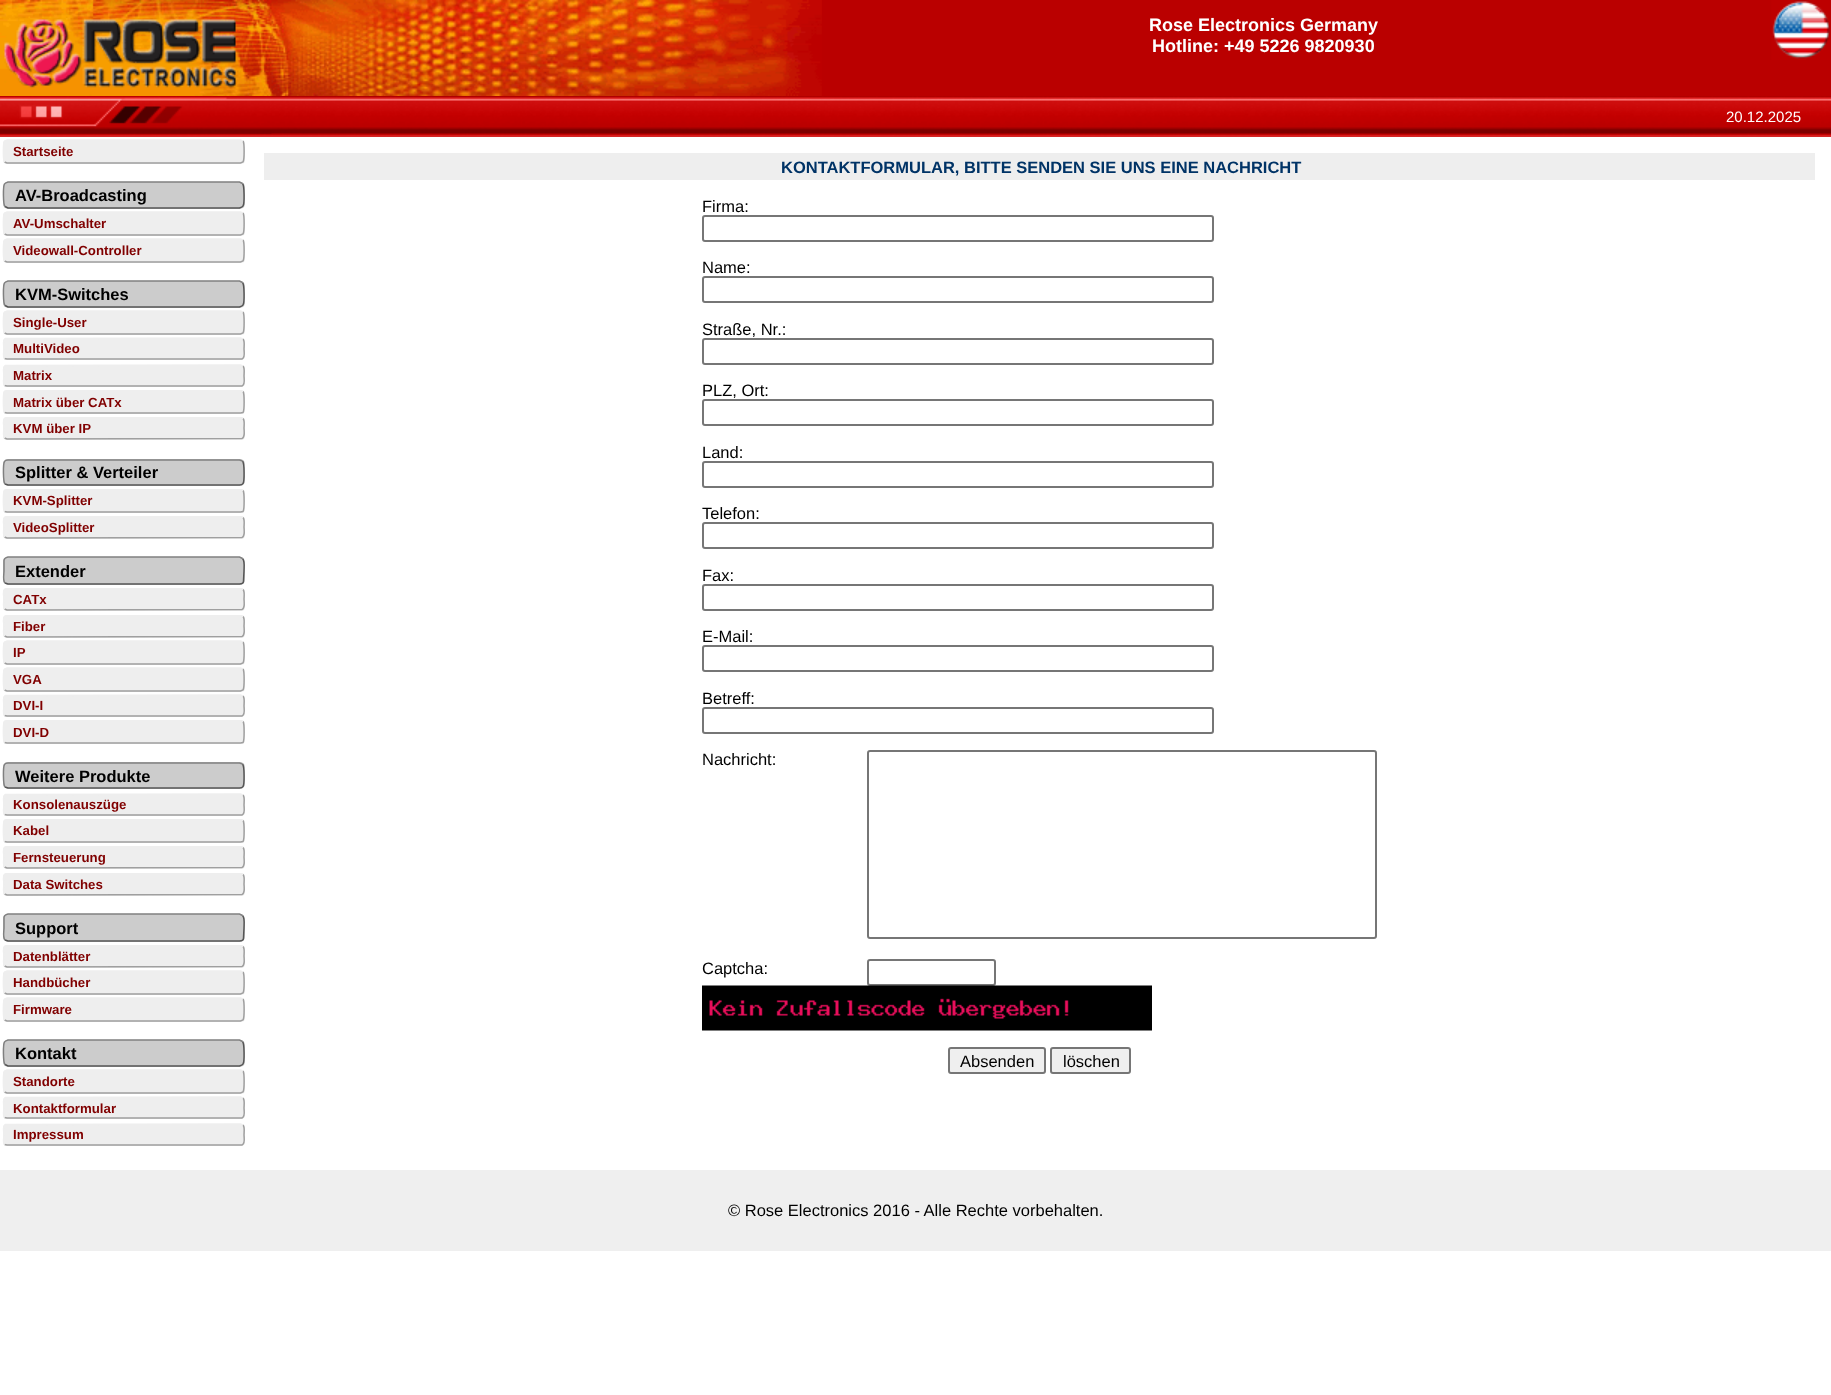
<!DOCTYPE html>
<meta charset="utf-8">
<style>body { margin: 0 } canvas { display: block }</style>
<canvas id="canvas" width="1831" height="1395"></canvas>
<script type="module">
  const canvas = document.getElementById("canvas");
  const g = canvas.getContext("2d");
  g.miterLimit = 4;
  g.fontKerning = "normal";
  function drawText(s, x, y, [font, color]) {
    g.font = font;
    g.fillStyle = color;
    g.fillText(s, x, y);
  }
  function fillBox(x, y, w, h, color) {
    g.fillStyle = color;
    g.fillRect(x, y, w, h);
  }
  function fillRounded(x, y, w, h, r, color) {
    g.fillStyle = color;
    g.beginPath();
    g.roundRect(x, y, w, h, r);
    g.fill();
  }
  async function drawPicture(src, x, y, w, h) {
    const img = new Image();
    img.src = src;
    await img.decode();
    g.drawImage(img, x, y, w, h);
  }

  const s1 = ["bold 18px Liberation Sans", "#FFFFFF"];
  const s2 = ["15px Liberation Sans", "#FFFFFF"];
  const s3 = ["bold 13.25px Liberation Sans", "#800000"];
  const s4 = ["bold 16.5px Liberation Sans", "#000000"];
  const s5 = ["bold 16.5px Liberation Sans", "#003366"];
  const s6 = ["16.5px Liberation Sans", "#000000"];

  fillBox(0, 0, 1831, 1395, "#FFFFFF");
  fillBox(0, 0, 1831, 137, "#BA0000");
  await drawPicture("pic1.png", 0, 0, 822, 96);
  drawText("Rose Electronics Germany", 1149, 31, s1);
  drawText("Hotline: +49 5226 9820930", 1152, 52, s1);
  await drawPicture("pic2.png", 1771, 0, 59, 60);
  await drawPicture("pic3.png", 0, 96, 1560, 41);
  await drawPicture("pic4.png", 0, 96, 272, 38);
  await drawPicture("pic5.png", 1560, 96, 271, 41);
  drawText("20.12.2025", 1726, 122, s2);
  fillRounded(3, 140, 242, 24, 4, "#EEEEEE");
  g.beginPath();
  g.moveTo(243, 141);
  g.bezierCurveTo(244.5, 143, 244.5, 160, 243, 162);
  g.lineTo(240.5, 163);
  g.lineTo(7, 163);
  g.lineTo(4.5, 162);
  g.strokeStyle = "#9F9F9F";
  g.lineWidth = 1.5;
  g.stroke();
  g.beginPath();
  g.moveTo(4.5, 162);
  g.bezierCurveTo(3, 160, 3, 143, 4.5, 141);
  g.lineTo(7, 140);
  g.lineTo(240.5, 140);
  g.lineTo(243, 141);
  g.strokeStyle = "#EEEEEE";
  g.stroke();
  drawText("Startseite", 13, 156, s3);
  fillRounded(3, 182, 242, 27, 5, "#CCCCCC");
  g.beginPath();
  g.moveTo(242.5, 183.5);
  g.bezierCurveTo(244.5, 185.5, 244.5, 204, 243, 206);
  g.bezierCurveTo(242.5, 207, 241, 207.5, 239.5, 208);
  g.lineTo(8, 208);
  g.lineTo(5, 206.5);
  g.strokeStyle = "#555555";
  g.stroke();
  g.beginPath();
  g.moveTo(5, 206.5);
  g.bezierCurveTo(3, 204.5, 3, 186, 4.5, 184);
  g.bezierCurveTo(5, 183, 6.5, 182.5, 8, 182);
  g.lineTo(239.5, 182);
  g.lineTo(242.5, 183.5);
  g.strokeStyle = "#808080";
  g.stroke();
  drawText("AV-Broadcasting", 15, 201, s4);
  fillRounded(3, 212, 242, 24, 4, "#EEEEEE");
  g.beginPath();
  g.moveTo(243, 213);
  g.bezierCurveTo(244.5, 215, 244.5, 232, 243, 234);
  g.lineTo(240.5, 235);
  g.lineTo(7, 235);
  g.lineTo(4.5, 234);
  g.strokeStyle = "#9F9F9F";
  g.stroke();
  g.beginPath();
  g.moveTo(4.5, 234);
  g.bezierCurveTo(3, 232, 3, 215, 4.5, 213);
  g.lineTo(7, 212);
  g.lineTo(240.5, 212);
  g.lineTo(243, 213);
  g.strokeStyle = "#EEEEEE";
  g.stroke();
  drawText("AV-Umschalter", 13, 228, s3);
  fillRounded(3, 239, 242, 24, 4, "#EEEEEE");
  g.beginPath();
  g.moveTo(243, 240);
  g.bezierCurveTo(244.5, 242, 244.5, 259, 243, 261);
  g.lineTo(240.5, 262);
  g.lineTo(7, 262);
  g.lineTo(4.5, 261);
  g.strokeStyle = "#9F9F9F";
  g.stroke();
  g.beginPath();
  g.moveTo(4.5, 261);
  g.bezierCurveTo(3, 259, 3, 242, 4.5, 240);
  g.lineTo(7, 239);
  g.lineTo(240.5, 239);
  g.lineTo(243, 240);
  g.strokeStyle = "#EEEEEE";
  g.stroke();
  drawText("Videowall-Controller", 13, 255, s3);
  fillRounded(3, 281, 242, 27, 5, "#CCCCCC");
  g.beginPath();
  g.moveTo(242.5, 282.5);
  g.bezierCurveTo(244.5, 284.5, 244.5, 303, 243, 305);
  g.bezierCurveTo(242.5, 306, 241, 306.5, 239.5, 307);
  g.lineTo(8, 307);
  g.lineTo(5, 305.5);
  g.strokeStyle = "#555555";
  g.stroke();
  g.beginPath();
  g.moveTo(5, 305.5);
  g.bezierCurveTo(3, 303.5, 3, 285, 4.5, 283);
  g.bezierCurveTo(5, 282, 6.5, 281.5, 8, 281);
  g.lineTo(239.5, 281);
  g.lineTo(242.5, 282.5);
  g.strokeStyle = "#808080";
  g.stroke();
  drawText("KVM-Switches", 15, 300, s4);
  fillRounded(3, 311, 242, 24, 4, "#EEEEEE");
  g.beginPath();
  g.moveTo(243, 312);
  g.bezierCurveTo(244.5, 314, 244.5, 331, 243, 333);
  g.lineTo(240.5, 334);
  g.lineTo(7, 334);
  g.lineTo(4.5, 333);
  g.strokeStyle = "#9F9F9F";
  g.stroke();
  g.beginPath();
  g.moveTo(4.5, 333);
  g.bezierCurveTo(3, 331, 3, 314, 4.5, 312);
  g.lineTo(7, 311);
  g.lineTo(240.5, 311);
  g.lineTo(243, 312);
  g.strokeStyle = "#EEEEEE";
  g.stroke();
  drawText("Single-User", 13, 327, s3);
  fillRounded(3, 338, 242, 22, 4, "#EEEEEE");
  g.beginPath();
  g.moveTo(243, 339);
  g.bezierCurveTo(245, 341.5, 244, 346, 244, 349);
  g.bezierCurveTo(244, 351.5, 245.5, 357.5, 242, 359);
  g.lineTo(7, 359);
  g.lineTo(4.5, 358.5);
  g.strokeStyle = "#9F9F9F";
  g.stroke();
  g.beginPath();
  g.moveTo(4.5, 358.5);
  g.bezierCurveTo(2.5, 356, 4, 351.5, 4, 349);
  g.bezierCurveTo(4, 346, 2, 340, 5.5, 338.5);
  g.lineTo(240.5, 338);
  g.lineTo(243, 339);
  g.strokeStyle = "#EEEEEE";
  g.stroke();
  drawText("MultiVideo", 13, 353, s3);
  fillRounded(3, 365, 242, 22, 4, "#EEEEEE");
  g.beginPath();
  g.moveTo(243, 366);
  g.bezierCurveTo(245, 368.5, 244, 373, 244, 376);
  g.bezierCurveTo(244, 378.5, 245.5, 384.5, 242, 386);
  g.lineTo(7, 386);
  g.lineTo(4.5, 385.5);
  g.strokeStyle = "#9F9F9F";
  g.stroke();
  g.beginPath();
  g.moveTo(4.5, 385.5);
  g.bezierCurveTo(2.5, 383, 4, 378.5, 4, 376);
  g.bezierCurveTo(4, 373, 2, 367, 5.5, 365.5);
  g.lineTo(240.5, 365);
  g.lineTo(243, 366);
  g.strokeStyle = "#EEEEEE";
  g.stroke();
  drawText("Matrix", 13, 380, s3);
  fillRounded(3, 390, 242, 24, 4, "#EEEEEE");
  g.beginPath();
  g.moveTo(243, 391.5);
  g.bezierCurveTo(244.5, 393.5, 244.5, 410.5, 243, 412.5);
  g.lineTo(240.5, 413);
  g.lineTo(7, 413);
  g.lineTo(4.5, 412.5);
  g.strokeStyle = "#9F9F9F";
  g.stroke();
  g.beginPath();
  g.moveTo(4.5, 412.5);
  g.bezierCurveTo(3, 410.5, 3, 393.5, 4.5, 391.5);
  g.lineTo(7, 391);
  g.lineTo(240.5, 391);
  g.lineTo(243, 391.5);
  g.strokeStyle = "#EEEEEE";
  g.stroke();
  drawText("Matrix über CATx", 13, 407, s3);
  fillRounded(3, 417, 242, 23, 4, "#EEEEEE");
  g.beginPath();
  g.moveTo(243, 418.5);
  g.bezierCurveTo(245, 421, 244, 425.5, 244, 428);
  g.bezierCurveTo(244, 431, 245.5, 437, 242, 438.5);
  g.lineTo(7, 439);
  g.lineTo(4.5, 438);
  g.strokeStyle = "#9F9F9F";
  g.stroke();
  g.beginPath();
  g.moveTo(4.5, 438);
  g.bezierCurveTo(2.5, 435.5, 4, 431, 4, 428);
  g.bezierCurveTo(4, 425.5, 2, 419.5, 5.5, 418);
  g.lineTo(240.5, 418);
  g.lineTo(243, 418.5);
  g.strokeStyle = "#EEEEEE";
  g.stroke();
  drawText("KVM über IP", 13, 433, s3);
  fillRounded(3, 459, 242, 27, 5, "#CCCCCC");
  g.beginPath();
  g.moveTo(242.5, 461);
  g.bezierCurveTo(244.5, 463, 244.5, 481.5, 243, 483.5);
  g.bezierCurveTo(242.5, 484.5, 241, 485, 239.5, 485);
  g.lineTo(8, 485);
  g.lineTo(5, 484);
  g.strokeStyle = "#555555";
  g.stroke();
  g.beginPath();
  g.moveTo(5, 484);
  g.bezierCurveTo(3, 482, 3, 463.5, 4.5, 461.5);
  g.bezierCurveTo(5, 460.5, 6.5, 460, 8, 460);
  g.lineTo(239.5, 460);
  g.lineTo(242.5, 461);
  g.strokeStyle = "#808080";
  g.stroke();
  drawText("Splitter & Verteiler", 15, 478, s4);
  fillRounded(3, 489, 242, 24, 4, "#EEEEEE");
  g.beginPath();
  g.moveTo(243, 490.5);
  g.bezierCurveTo(244.5, 492.5, 244.5, 509.5, 243, 511.5);
  g.lineTo(240.5, 512);
  g.lineTo(7, 512);
  g.lineTo(4.5, 511.5);
  g.strokeStyle = "#9F9F9F";
  g.stroke();
  g.beginPath();
  g.moveTo(4.5, 511.5);
  g.bezierCurveTo(3, 509.5, 3, 492.5, 4.5, 490.5);
  g.lineTo(7, 490);
  g.lineTo(240.5, 490);
  g.lineTo(243, 490.5);
  g.strokeStyle = "#EEEEEE";
  g.stroke();
  drawText("KVM-Splitter", 13, 505, s3);
  fillRounded(3, 516, 242, 23, 4, "#EEEEEE");
  g.beginPath();
  g.moveTo(243, 517.5);
  g.bezierCurveTo(245, 520, 244, 524.5, 244, 527);
  g.bezierCurveTo(244, 530, 245.5, 536, 242, 537.5);
  g.lineTo(7, 538);
  g.lineTo(4.5, 537);
  g.strokeStyle = "#9F9F9F";
  g.stroke();
  g.beginPath();
  g.moveTo(4.5, 537);
  g.bezierCurveTo(2.5, 534.5, 4, 530, 4, 527);
  g.bezierCurveTo(4, 524.5, 2, 518.5, 5.5, 517);
  g.lineTo(240.5, 517);
  g.lineTo(243, 517.5);
  g.strokeStyle = "#EEEEEE";
  g.stroke();
  drawText("VideoSplitter", 13, 532, s3);
  fillRounded(3, 557, 242, 28, 5, "#CCCCCC");
  g.beginPath();
  g.moveTo(242.5, 558.5);
  g.bezierCurveTo(245, 561, 244, 567.5, 244, 571);
  g.lineTo(243.5, 581);
  g.bezierCurveTo(243.5, 583, 241.5, 584, 239.5, 584);
  g.lineTo(8, 584);
  g.lineTo(5, 583);
  g.strokeStyle = "#555555";
  g.stroke();
  g.beginPath();
  g.moveTo(5, 583);
  g.bezierCurveTo(2.5, 580.5, 4, 574, 4, 571);
  g.lineTo(4, 560.5);
  g.bezierCurveTo(4, 558.5, 6, 557.5, 8, 557);
  g.lineTo(239.5, 557);
  g.lineTo(242.5, 558.5);
  g.strokeStyle = "#808080";
  g.stroke();
  drawText("Extender", 15, 577, s4);
  fillRounded(3, 588, 242, 23, 4, "#EEEEEE");
  g.beginPath();
  g.moveTo(243, 589.5);
  g.bezierCurveTo(245, 592, 244, 596.5, 244, 599);
  g.bezierCurveTo(244, 602, 245.5, 608, 242, 609.5);
  g.lineTo(7, 610);
  g.lineTo(4.5, 609);
  g.strokeStyle = "#9F9F9F";
  g.stroke();
  g.beginPath();
  g.moveTo(4.5, 609);
  g.bezierCurveTo(2.5, 606.5, 4, 602, 4, 599);
  g.bezierCurveTo(4, 596.5, 2, 590.5, 5.5, 589);
  g.lineTo(240.5, 589);
  g.lineTo(243, 589.5);
  g.strokeStyle = "#EEEEEE";
  g.stroke();
  drawText("CATx", 13, 604, s3);
  fillRounded(3, 615, 242, 23, 4, "#EEEEEE");
  g.beginPath();
  g.moveTo(243, 616.5);
  g.bezierCurveTo(245, 619, 244, 623.5, 244, 626);
  g.bezierCurveTo(244, 629, 245.5, 635, 242, 636.5);
  g.lineTo(7, 637);
  g.lineTo(4.5, 636);
  g.strokeStyle = "#9F9F9F";
  g.stroke();
  g.beginPath();
  g.moveTo(4.5, 636);
  g.bezierCurveTo(2.5, 633.5, 4, 629, 4, 626);
  g.bezierCurveTo(4, 623.5, 2, 617.5, 5.5, 616);
  g.lineTo(240.5, 616);
  g.lineTo(243, 616.5);
  g.strokeStyle = "#EEEEEE";
  g.stroke();
  drawText("Fiber", 13, 631, s3);
  fillRounded(3, 641, 242, 24, 4, "#EEEEEE");
  g.beginPath();
  g.moveTo(243, 642);
  g.bezierCurveTo(244.5, 644, 244.5, 661, 243, 663);
  g.lineTo(240.5, 664);
  g.lineTo(7, 664);
  g.lineTo(4.5, 663);
  g.strokeStyle = "#9F9F9F";
  g.stroke();
  g.beginPath();
  g.moveTo(4.5, 663);
  g.bezierCurveTo(3, 661, 3, 644, 4.5, 642);
  g.lineTo(7, 641);
  g.lineTo(240.5, 641);
  g.lineTo(243, 642);
  g.strokeStyle = "#EEEEEE";
  g.stroke();
  drawText("IP", 13, 657, s3);
  fillRounded(3, 668, 242, 24, 4, "#EEEEEE");
  g.beginPath();
  g.moveTo(243, 669);
  g.bezierCurveTo(244.5, 671, 244.5, 688, 243, 690);
  g.lineTo(240.5, 691);
  g.lineTo(7, 691);
  g.lineTo(4.5, 690);
  g.strokeStyle = "#9F9F9F";
  g.stroke();
  g.beginPath();
  g.moveTo(4.5, 690);
  g.bezierCurveTo(3, 688, 3, 671, 4.5, 669);
  g.lineTo(7, 668);
  g.lineTo(240.5, 668);
  g.lineTo(243, 669);
  g.strokeStyle = "#EEEEEE";
  g.stroke();
  drawText("VGA", 13, 684, s3);
  fillRounded(3, 695, 242, 22, 4, "#EEEEEE");
  g.beginPath();
  g.moveTo(243, 696);
  g.bezierCurveTo(245, 698.5, 244, 703, 244, 706);
  g.bezierCurveTo(244, 708.5, 245.5, 714.5, 242, 716);
  g.lineTo(7, 716);
  g.lineTo(4.5, 715.5);
  g.strokeStyle = "#9F9F9F";
  g.stroke();
  g.beginPath();
  g.moveTo(4.5, 715.5);
  g.bezierCurveTo(2.5, 713, 4, 708.5, 4, 706);
  g.bezierCurveTo(4, 703, 2, 697, 5.5, 695.5);
  g.lineTo(240.5, 695);
  g.lineTo(243, 696);
  g.strokeStyle = "#EEEEEE";
  g.stroke();
  drawText("DVI-I", 13, 710, s3);
  fillRounded(3, 720, 242, 24, 4, "#EEEEEE");
  g.beginPath();
  g.moveTo(243, 721.5);
  g.bezierCurveTo(244.5, 723.5, 244.5, 740.5, 243, 742.5);
  g.lineTo(240.5, 743);
  g.lineTo(7, 743);
  g.lineTo(4.5, 742.5);
  g.strokeStyle = "#9F9F9F";
  g.stroke();
  g.beginPath();
  g.moveTo(4.5, 742.5);
  g.bezierCurveTo(3, 740.5, 3, 723.5, 4.5, 721.5);
  g.lineTo(7, 721);
  g.lineTo(240.5, 721);
  g.lineTo(243, 721.5);
  g.strokeStyle = "#EEEEEE";
  g.stroke();
  drawText("DVI-D", 13, 737, s3);
  fillRounded(3, 762, 242, 27, 5, "#CCCCCC");
  g.beginPath();
  g.moveTo(242.5, 764);
  g.bezierCurveTo(244.5, 766, 244.5, 784.5, 243, 786.5);
  g.bezierCurveTo(242.5, 787.5, 241, 788, 239.5, 788);
  g.lineTo(8, 788);
  g.lineTo(5, 787);
  g.strokeStyle = "#555555";
  g.stroke();
  g.beginPath();
  g.moveTo(5, 787);
  g.bezierCurveTo(3, 785, 3, 766.5, 4.5, 764.5);
  g.bezierCurveTo(5, 763.5, 6.5, 763, 8, 763);
  g.lineTo(239.5, 763);
  g.lineTo(242.5, 764);
  g.strokeStyle = "#808080";
  g.stroke();
  drawText("Weitere Produkte", 15, 782, s4);
  fillRounded(3, 794, 242, 22, 4, "#EEEEEE");
  g.beginPath();
  g.moveTo(243, 795);
  g.bezierCurveTo(245, 797.5, 244, 802, 244, 805);
  g.bezierCurveTo(244, 807.5, 245.5, 813.5, 242, 815);
  g.lineTo(7, 815);
  g.lineTo(4.5, 814.5);
  g.strokeStyle = "#9F9F9F";
  g.stroke();
  g.beginPath();
  g.moveTo(4.5, 814.5);
  g.bezierCurveTo(2.5, 812, 4, 807.5, 4, 805);
  g.bezierCurveTo(4, 802, 2, 796, 5.5, 794.5);
  g.lineTo(240.5, 794);
  g.lineTo(243, 795);
  g.strokeStyle = "#EEEEEE";
  g.stroke();
  drawText("Konsolenauszüge", 13, 809, s3);
  fillRounded(3, 819, 242, 24, 4, "#EEEEEE");
  g.beginPath();
  g.moveTo(243, 820.5);
  g.bezierCurveTo(244.5, 822.5, 244.5, 839.5, 243, 841.5);
  g.lineTo(240.5, 842);
  g.lineTo(7, 842);
  g.lineTo(4.5, 841.5);
  g.strokeStyle = "#9F9F9F";
  g.stroke();
  g.beginPath();
  g.moveTo(4.5, 841.5);
  g.bezierCurveTo(3, 839.5, 3, 822.5, 4.5, 820.5);
  g.lineTo(7, 820);
  g.lineTo(240.5, 820);
  g.lineTo(243, 820.5);
  g.strokeStyle = "#EEEEEE";
  g.stroke();
  drawText("Kabel", 13, 835, s3);
  fillRounded(3, 846, 242, 23, 4, "#EEEEEE");
  g.beginPath();
  g.moveTo(243, 847.5);
  g.bezierCurveTo(245, 850, 244, 854.5, 244, 857);
  g.bezierCurveTo(244, 860, 245.5, 866, 242, 867.5);
  g.lineTo(7, 868);
  g.lineTo(4.5, 867);
  g.strokeStyle = "#9F9F9F";
  g.stroke();
  g.beginPath();
  g.moveTo(4.5, 867);
  g.bezierCurveTo(2.5, 864.5, 4, 860, 4, 857);
  g.bezierCurveTo(4, 854.5, 2, 848.5, 5.5, 847);
  g.lineTo(240.5, 847);
  g.lineTo(243, 847.5);
  g.strokeStyle = "#EEEEEE";
  g.stroke();
  drawText("Fernsteuerung", 13, 862, s3);
  fillRounded(3, 873, 242, 23, 4, "#EEEEEE");
  g.beginPath();
  g.moveTo(243, 874.5);
  g.bezierCurveTo(245, 877, 244, 881.5, 244, 884);
  g.bezierCurveTo(244, 887, 245.5, 893, 242, 894.5);
  g.lineTo(7, 895);
  g.lineTo(4.5, 894);
  g.strokeStyle = "#9F9F9F";
  g.stroke();
  g.beginPath();
  g.moveTo(4.5, 894);
  g.bezierCurveTo(2.5, 891.5, 4, 887, 4, 884);
  g.bezierCurveTo(4, 881.5, 2, 875.5, 5.5, 874);
  g.lineTo(240.5, 874);
  g.lineTo(243, 874.5);
  g.strokeStyle = "#EEEEEE";
  g.stroke();
  drawText("Data Switches", 13, 889, s3);
  fillRounded(3, 914, 242, 28, 5, "#CCCCCC");
  g.beginPath();
  g.moveTo(242.5, 915.5);
  g.bezierCurveTo(245, 918, 244, 924.5, 244, 928);
  g.lineTo(243.5, 938);
  g.bezierCurveTo(243.5, 940, 241.5, 941, 239.5, 941);
  g.lineTo(8, 941);
  g.lineTo(5, 940);
  g.strokeStyle = "#555555";
  g.stroke();
  g.beginPath();
  g.moveTo(5, 940);
  g.bezierCurveTo(2.5, 937.5, 4, 931, 4, 928);
  g.lineTo(4, 917.5);
  g.bezierCurveTo(4, 915.5, 6, 914.5, 8, 914);
  g.lineTo(239.5, 914);
  g.lineTo(242.5, 915.5);
  g.strokeStyle = "#808080";
  g.stroke();
  drawText("Support", 15, 934, s4);
  fillRounded(3, 945, 242, 23, 4, "#EEEEEE");
  g.beginPath();
  g.moveTo(243, 946.5);
  g.bezierCurveTo(245, 949, 244, 953.5, 244, 956);
  g.bezierCurveTo(244, 959, 245.5, 965, 242, 966.5);
  g.lineTo(7, 967);
  g.lineTo(4.5, 966);
  g.strokeStyle = "#9F9F9F";
  g.stroke();
  g.beginPath();
  g.moveTo(4.5, 966);
  g.bezierCurveTo(2.5, 963.5, 4, 959, 4, 956);
  g.bezierCurveTo(4, 953.5, 2, 947.5, 5.5, 946);
  g.lineTo(240.5, 946);
  g.lineTo(243, 946.5);
  g.strokeStyle = "#EEEEEE";
  g.stroke();
  drawText("Datenblätter", 13, 961, s3);
  fillRounded(3, 971, 242, 24, 4, "#EEEEEE");
  g.beginPath();
  g.moveTo(243, 972);
  g.bezierCurveTo(244.5, 974, 244.5, 991, 243, 993);
  g.lineTo(240.5, 994);
  g.lineTo(7, 994);
  g.lineTo(4.5, 993);
  g.strokeStyle = "#9F9F9F";
  g.stroke();
  g.beginPath();
  g.moveTo(4.5, 993);
  g.bezierCurveTo(3, 991, 3, 974, 4.5, 972);
  g.lineTo(7, 971);
  g.lineTo(240.5, 971);
  g.lineTo(243, 972);
  g.strokeStyle = "#EEEEEE";
  g.stroke();
  drawText("Handbücher", 13, 987, s3);
  fillRounded(3, 998, 242, 24, 4, "#EEEEEE");
  g.beginPath();
  g.moveTo(243, 999);
  g.bezierCurveTo(244.5, 1001, 244.5, 1018, 243, 1020);
  g.lineTo(240.5, 1021);
  g.lineTo(7, 1021);
  g.lineTo(4.5, 1020);
  g.strokeStyle = "#9F9F9F";
  g.stroke();
  g.beginPath();
  g.moveTo(4.5, 1020);
  g.bezierCurveTo(3, 1018, 3, 1001, 4.5, 999);
  g.lineTo(7, 998);
  g.lineTo(240.5, 998);
  g.lineTo(243, 999);
  g.strokeStyle = "#EEEEEE";
  g.stroke();
  drawText("Firmware", 13, 1014, s3);
  fillRounded(3, 1040, 242, 27, 5, "#CCCCCC");
  g.beginPath();
  g.moveTo(242.5, 1041.5);
  g.bezierCurveTo(244.5, 1043.5, 244.5, 1062, 243, 1064);
  g.bezierCurveTo(242.5, 1065, 241, 1065.5, 239.5, 1066);
  g.lineTo(8, 1066);
  g.lineTo(5, 1064.5);
  g.strokeStyle = "#555555";
  g.stroke();
  g.beginPath();
  g.moveTo(5, 1064.5);
  g.bezierCurveTo(3, 1062.5, 3, 1044, 4.5, 1042);
  g.bezierCurveTo(5, 1041, 6.5, 1040.5, 8, 1040);
  g.lineTo(239.5, 1040);
  g.lineTo(242.5, 1041.5);
  g.strokeStyle = "#808080";
  g.stroke();
  drawText("Kontakt", 15, 1059, s4);
  fillRounded(3, 1070, 242, 24, 4, "#EEEEEE");
  g.beginPath();
  g.moveTo(243, 1071);
  g.bezierCurveTo(244.5, 1073, 244.5, 1090, 243, 1092);
  g.lineTo(240.5, 1093);
  g.lineTo(7, 1093);
  g.lineTo(4.5, 1092);
  g.strokeStyle = "#9F9F9F";
  g.stroke();
  g.beginPath();
  g.moveTo(4.5, 1092);
  g.bezierCurveTo(3, 1090, 3, 1073, 4.5, 1071);
  g.lineTo(7, 1070);
  g.lineTo(240.5, 1070);
  g.lineTo(243, 1071);
  g.strokeStyle = "#EEEEEE";
  g.stroke();
  drawText("Standorte", 13, 1086, s3);
  fillRounded(3, 1097, 242, 22, 4, "#EEEEEE");
  g.beginPath();
  g.moveTo(243, 1098);
  g.bezierCurveTo(245, 1100.5, 244, 1105, 244, 1108);
  g.bezierCurveTo(244, 1110.5, 245.5, 1116.5, 242, 1118);
  g.lineTo(7, 1118);
  g.lineTo(4.5, 1117.5);
  g.strokeStyle = "#9F9F9F";
  g.stroke();
  g.beginPath();
  g.moveTo(4.5, 1117.5);
  g.bezierCurveTo(2.5, 1115, 4, 1110.5, 4, 1108);
  g.bezierCurveTo(4, 1105, 2, 1099, 5.5, 1097.5);
  g.lineTo(240.5, 1097);
  g.lineTo(243, 1098);
  g.strokeStyle = "#EEEEEE";
  g.stroke();
  drawText("Kontaktformular", 13, 1113, s3);
  fillRounded(3, 1124, 242, 22, 4, "#EEEEEE");
  g.beginPath();
  g.moveTo(243, 1125);
  g.bezierCurveTo(245, 1127.5, 244, 1132, 244, 1135);
  g.bezierCurveTo(244, 1137.5, 245.5, 1143.5, 242, 1145);
  g.lineTo(7, 1145);
  g.lineTo(4.5, 1144.5);
  g.strokeStyle = "#9F9F9F";
  g.stroke();
  g.beginPath();
  g.moveTo(4.5, 1144.5);
  g.bezierCurveTo(2.5, 1142, 4, 1137.5, 4, 1135);
  g.bezierCurveTo(4, 1132, 2, 1126, 5.5, 1124.5);
  g.lineTo(240.5, 1124);
  g.lineTo(243, 1125);
  g.strokeStyle = "#EEEEEE";
  g.stroke();
  drawText("Impressum", 13, 1139, s3);
  fillBox(264, 153, 1551, 27, "#EEEEEE");
  drawText("KONTAKTFORMULAR, BITTE SENDEN SIE UNS EINE NACHRICHT", 781, 173, s5);
  drawText("Firma:", 702, 212, s6);
  g.beginPath();
  g.roundRect(703, 216, 510, 25, 2);
  g.strokeStyle = "#767676";
  g.lineWidth = 2;
  g.stroke();
  drawText("Name:", 702, 273, s6);
  g.beginPath();
  g.roundRect(703, 277, 510, 25, 2);
  g.stroke();
  drawText("Straße, Nr.:", 702, 335, s6);
  g.beginPath();
  g.roundRect(703, 339, 510, 25, 2);
  g.stroke();
  drawText("PLZ, Ort:", 702, 396, s6);
  g.beginPath();
  g.roundRect(703, 400, 510, 25, 2);
  g.stroke();
  drawText("Land:", 702, 458, s6);
  g.beginPath();
  g.roundRect(703, 462, 510, 25, 2);
  g.stroke();
  drawText("Telefon:", 702, 519, s6);
  g.beginPath();
  g.roundRect(703, 523, 510, 25, 2);
  g.stroke();
  drawText("Fax:", 702, 581, s6);
  g.beginPath();
  g.roundRect(703, 585, 510, 25, 2);
  g.stroke();
  drawText("E-Mail:", 702, 642, s6);
  g.beginPath();
  g.roundRect(703, 646, 510, 25, 2);
  g.stroke();
  drawText("Betreff:", 702, 704, s6);
  g.beginPath();
  g.roundRect(703, 708, 510, 25, 2);
  g.stroke();
  drawText("Nachricht:", 702, 765, s6);
  g.beginPath();
  g.roundRect(868, 751, 508, 187, 2);
  g.stroke();
  drawText("Captcha:", 702, 974, s6);
  g.beginPath();
  g.roundRect(868, 960, 127, 25, 2);
  g.stroke();
  await drawPicture("pic6.png", 702, 985, 450, 46);
  g.fillStyle = "#EFEFEF";
  g.beginPath();
  g.roundRect(949, 1048, 96, 25, 2);
  g.fill();
  g.stroke();
  drawText("Absenden", 960, 1067, s6);
  g.fillStyle = "#EFEFEF";
  g.beginPath();
  g.roundRect(1051, 1048, 79, 25, 2);
  g.fill();
  g.stroke();
  drawText("löschen", 1063, 1067, s6);
  fillBox(0, 1170, 1831, 81, "#EFEFEF");
  drawText("© Rose Electronics 2016 - Alle Rechte vorbehalten.", 728, 1216, s6);
</script>
